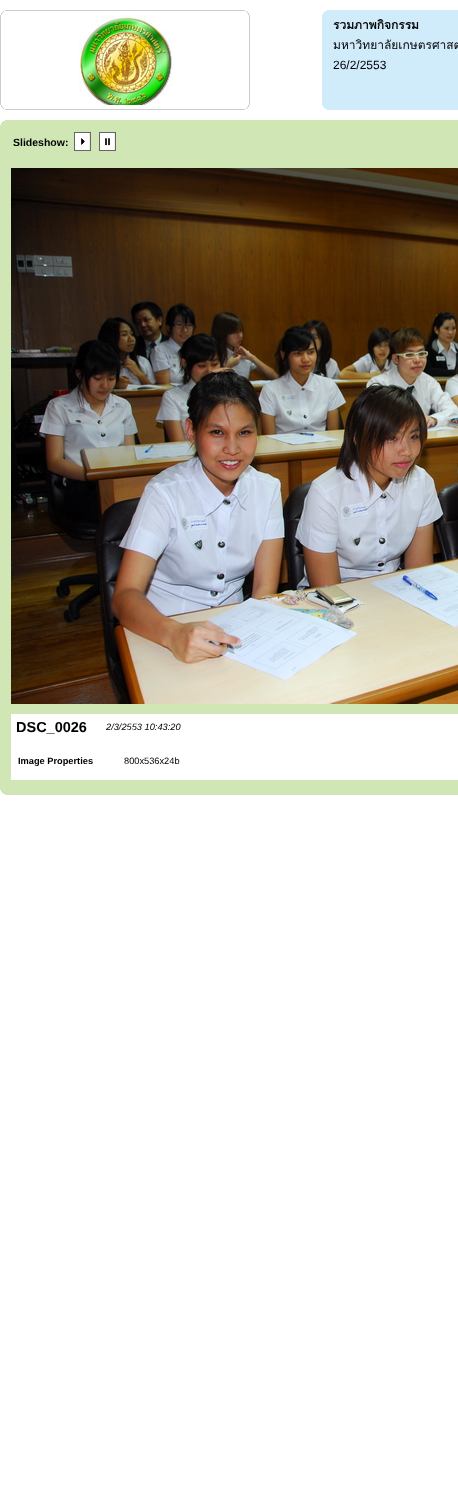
<!DOCTYPE html>
<meta charset="utf-8">
<style>body { margin: 0 } canvas { display: block }</style>
<canvas id="canvas" width="458" height="1492"></canvas>
<script type="module">
  const canvas = document.getElementById("canvas");
  const g = canvas.getContext("2d");
  g.miterLimit = 4;
  g.fontKerning = "normal";
  function drawText(s, x, y, [font, color]) {
    g.font = font;
    g.fillStyle = color;
    g.fillText(s, x, y);
  }
  function fillBox(x, y, w, h, color) {
    g.fillStyle = color;
    g.fillRect(x, y, w, h);
  }
  async function drawPicture(src, x, y, w, h) {
    const img = new Image();
    img.src = src;
    await img.decode();
    g.drawImage(img, x, y, w, h);
  }

  const s1 = ["bold 12px Loma", "#000000"];
  const s2 = ["12px Loma", "#000000"];
  const s3 = ["12px Liberation Sans", "#000000"];
  const s4 = ["bold 10.5px Liberation Sans", "#000000"];
  const s5 = ["bold 14.5px Liberation Sans", "#000000"];
  const s6 = ["italic 9.25px Liberation Sans", "#000000"];
  const s7 = ["bold 9.25px Liberation Sans", "#000000"];
  const s8 = ["9.25px Liberation Sans", "#000000"];

  fillBox(0, 0, 458, 1492, "#FFFFFF");
  fillBox(5, 10, 240, 1, "#CCCCCC");
  fillBox(246, 11, 1, 1, "#CCCCCC");
  fillBox(3, 11, 1, 1, "#CCCCCC");
  fillBox(247, 12, 1, 1, "#CCCCCC");
  fillBox(2, 12, 1, 1, "#CCCCCC");
  fillBox(248, 13, 1, 2, "#CCCCCC");
  fillBox(1, 13, 1, 2, "#CCCCCC");
  fillBox(249, 15, 1, 90, "#CCCCCC");
  fillBox(0, 15, 1, 90, "#CCCCCC");
  await drawPicture("pic1.png", 78, 15, 95, 90);
  fillBox(248, 105, 1, 2, "#CCCCCC");
  fillBox(1, 105, 1, 2, "#CCCCCC");
  fillBox(247, 107, 1, 1, "#CCCCCC");
  fillBox(2, 107, 1, 1, "#CCCCCC");
  fillBox(246, 108, 1, 1, "#CCCCCC");
  fillBox(3, 108, 1, 1, "#CCCCCC");
  fillBox(5, 109, 240, 1, "#CCCCCC");
  fillBox(327, 10, 131, 1, "#D0ECFB");
  fillBox(325, 11, 133, 1, "#D0ECFB");
  fillBox(324, 12, 134, 1, "#D0ECFB");
  fillBox(323, 13, 135, 2, "#D0ECFB");
  fillBox(322, 15, 136, 90, "#D0ECFB");
  drawText("รวมภาพกิจกรรม", 333, 29, s1);
  drawText("มหาวิทยาลัยเกษตรศาสต", 333, 49, s2);
  drawText("26/2/2553", 333, 69, s3);
  fillBox(323, 105, 135, 2, "#D0ECFB");
  fillBox(324, 107, 134, 1, "#D0ECFB");
  fillBox(325, 108, 133, 1, "#D0ECFB");
  fillBox(327, 109, 131, 1, "#D0ECFB");
  fillBox(5, 120, 453, 1, "#D0E6B5");
  fillBox(3, 121, 455, 1, "#D0E6B5");
  fillBox(2, 122, 456, 1, "#D0E6B5");
  fillBox(1, 123, 457, 2, "#D0E6B5");
  fillBox(0, 125, 458, 665, "#D0E6B5");
  drawText("Slideshow:", 13, 146, s4);
  await drawPicture("pic2.png", 74, 132, 17, 19);
  await drawPicture("pic3.png", 99, 132, 17, 19);
  await drawPicture("pic4.png", 11, 168, 447, 536);
  fillBox(11, 714, 447, 66, "#FFFFFF");
  drawText("DSC_0026", 16, 732, s5);
  drawText("2/3/2553 10:43:20", 106, 730, s6);
  drawText("Image Properties", 18, 764, s7);
  drawText("800x536x24b", 124, 764, s8);
  fillBox(1, 790, 457, 2, "#D0E6B5");
  fillBox(2, 792, 456, 1, "#D0E6B5");
  fillBox(3, 793, 455, 1, "#D0E6B5");
  fillBox(5, 794, 453, 1, "#D0E6B5");
</script>
